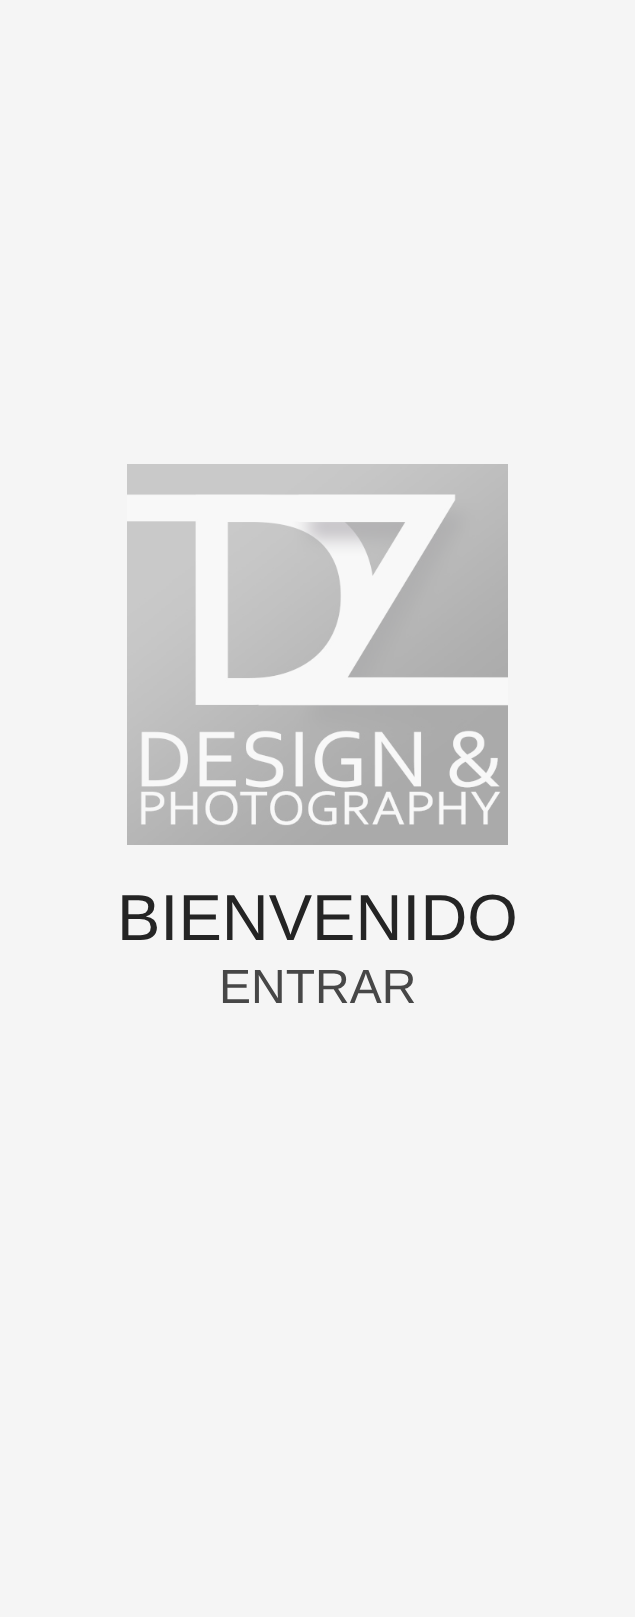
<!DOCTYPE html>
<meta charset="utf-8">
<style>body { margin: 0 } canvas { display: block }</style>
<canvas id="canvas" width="635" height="1617"></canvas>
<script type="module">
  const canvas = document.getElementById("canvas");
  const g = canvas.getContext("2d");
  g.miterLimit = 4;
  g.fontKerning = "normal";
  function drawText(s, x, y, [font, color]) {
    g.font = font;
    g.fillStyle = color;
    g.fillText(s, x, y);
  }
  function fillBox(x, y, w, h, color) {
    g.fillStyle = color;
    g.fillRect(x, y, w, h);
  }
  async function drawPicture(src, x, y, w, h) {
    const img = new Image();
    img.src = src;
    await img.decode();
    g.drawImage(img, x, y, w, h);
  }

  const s1 = ["65px Liberation Sans", "#242424"];
  const s2 = ["48px Liberation Sans", "#474747"];

  fillBox(0, 0, 635, 1617, "#F5F5F5");
  await drawPicture("pic1.png", 127, 464, 381, 381);
  drawText("BIENVENIDO", 117, 940, s1);
  drawText("ENTRAR", 219, 1003, s2);
</script>
